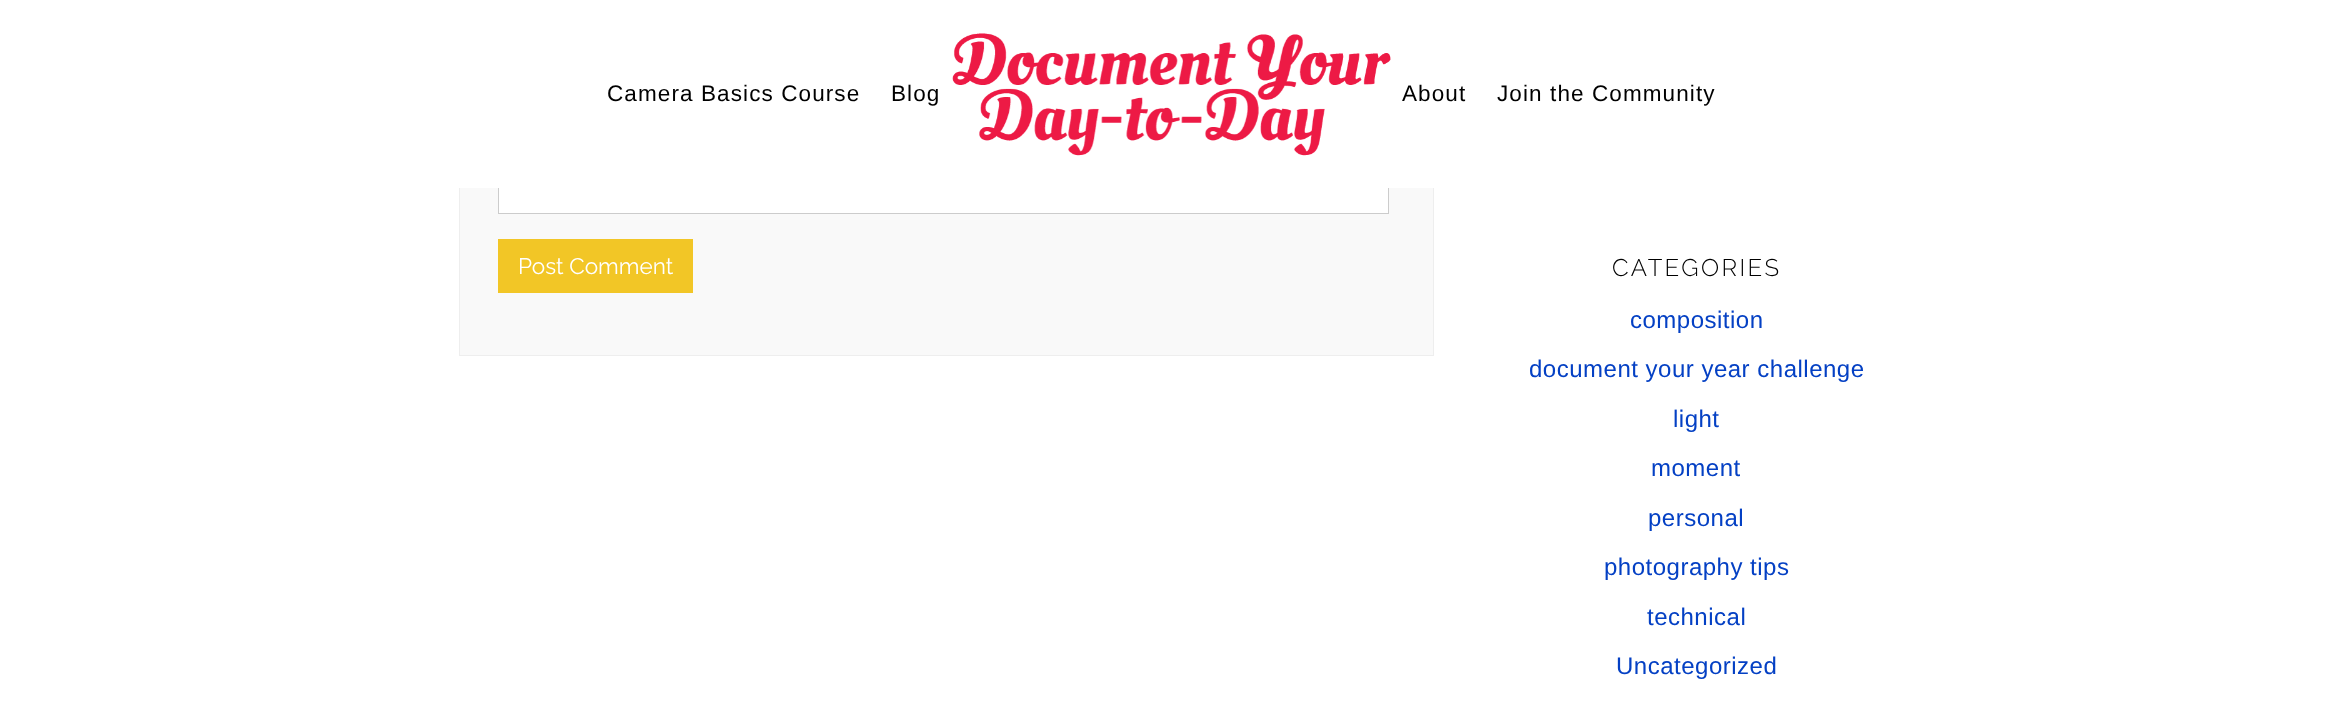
<!DOCTYPE html>
<meta charset="utf-8">
<style>body { margin: 0 } canvas { display: block }</style>
<canvas id="canvas" width="2342" height="704"></canvas>
<script type="module">
  const canvas = document.getElementById("canvas");
  const g = canvas.getContext("2d");
  g.miterLimit = 4;
  g.fontKerning = "normal";
  function drawText(s, x, y, [font, color]) {
    g.font = font;
    g.fillStyle = color;
    g.fillText(s, x, y);
  }
  function fillBox(x, y, w, h, color) {
    g.fillStyle = color;
    g.fillRect(x, y, w, h);
  }
  async function drawPicture(src, x, y, w, h) {
    const img = new Image();
    img.src = src;
    await img.decode();
    g.drawImage(img, x, y, w, h);
  }

  const s1 = ["22.5px Liberation Sans", "#000000"];
  const s2 = ["22.5px Raleway", "#FFFFFF"];
  const s3 = ["300 24px Raleway", "#000000"];
  const s4 = ["24px Liberation Sans", "#0440C4"];

  fillBox(0, 0, 2342, 704, "#FFFFFF");
  fillBox(460, 188, 973, 167, "#F9F9F9");
  g.strokeStyle = "#EEEEEE";
  g.strokeRect(459.5, -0.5, 974, 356);
  fillBox(499, 188, 889, 25, "#FFFFFF");
  g.strokeStyle = "#CCCCCC";
  g.strokeRect(498.5, 144.5, 890, 69);
  fillBox(459, 0, 975, 188, "#FFFFFF");
  g.letterSpacing = "1.1px";
  drawText("Camera Basics Course", 607, 101, s1);
  drawText("Blog", 891, 101, s1);
  await drawPicture("pic1.png", 952, 33, 439, 123);
  drawText("About", 1402, 101, s1);
  drawText("Join the Community", 1497, 101, s1);
  fillBox(498, 239, 195, 54, "#F2C626");
  g.letterSpacing = "0px";
  drawText("Post Comment", 518, 274, s2);
  g.letterSpacing = "2.4px";
  drawText("CATEGORIES", 1612, 276, s3);
  g.letterSpacing = "0.5px";
  drawText("composition", 1630, 328, s4);
  drawText("document your year challenge", 1529, 377, s4);
  drawText("light", 1673, 427, s4);
  drawText("moment", 1651, 476, s4);
  drawText("personal", 1648, 526, s4);
  drawText("photography tips", 1604, 575, s4);
  drawText("technical", 1647, 625, s4);
  drawText("Uncategorized", 1616, 674, s4);
</script>
